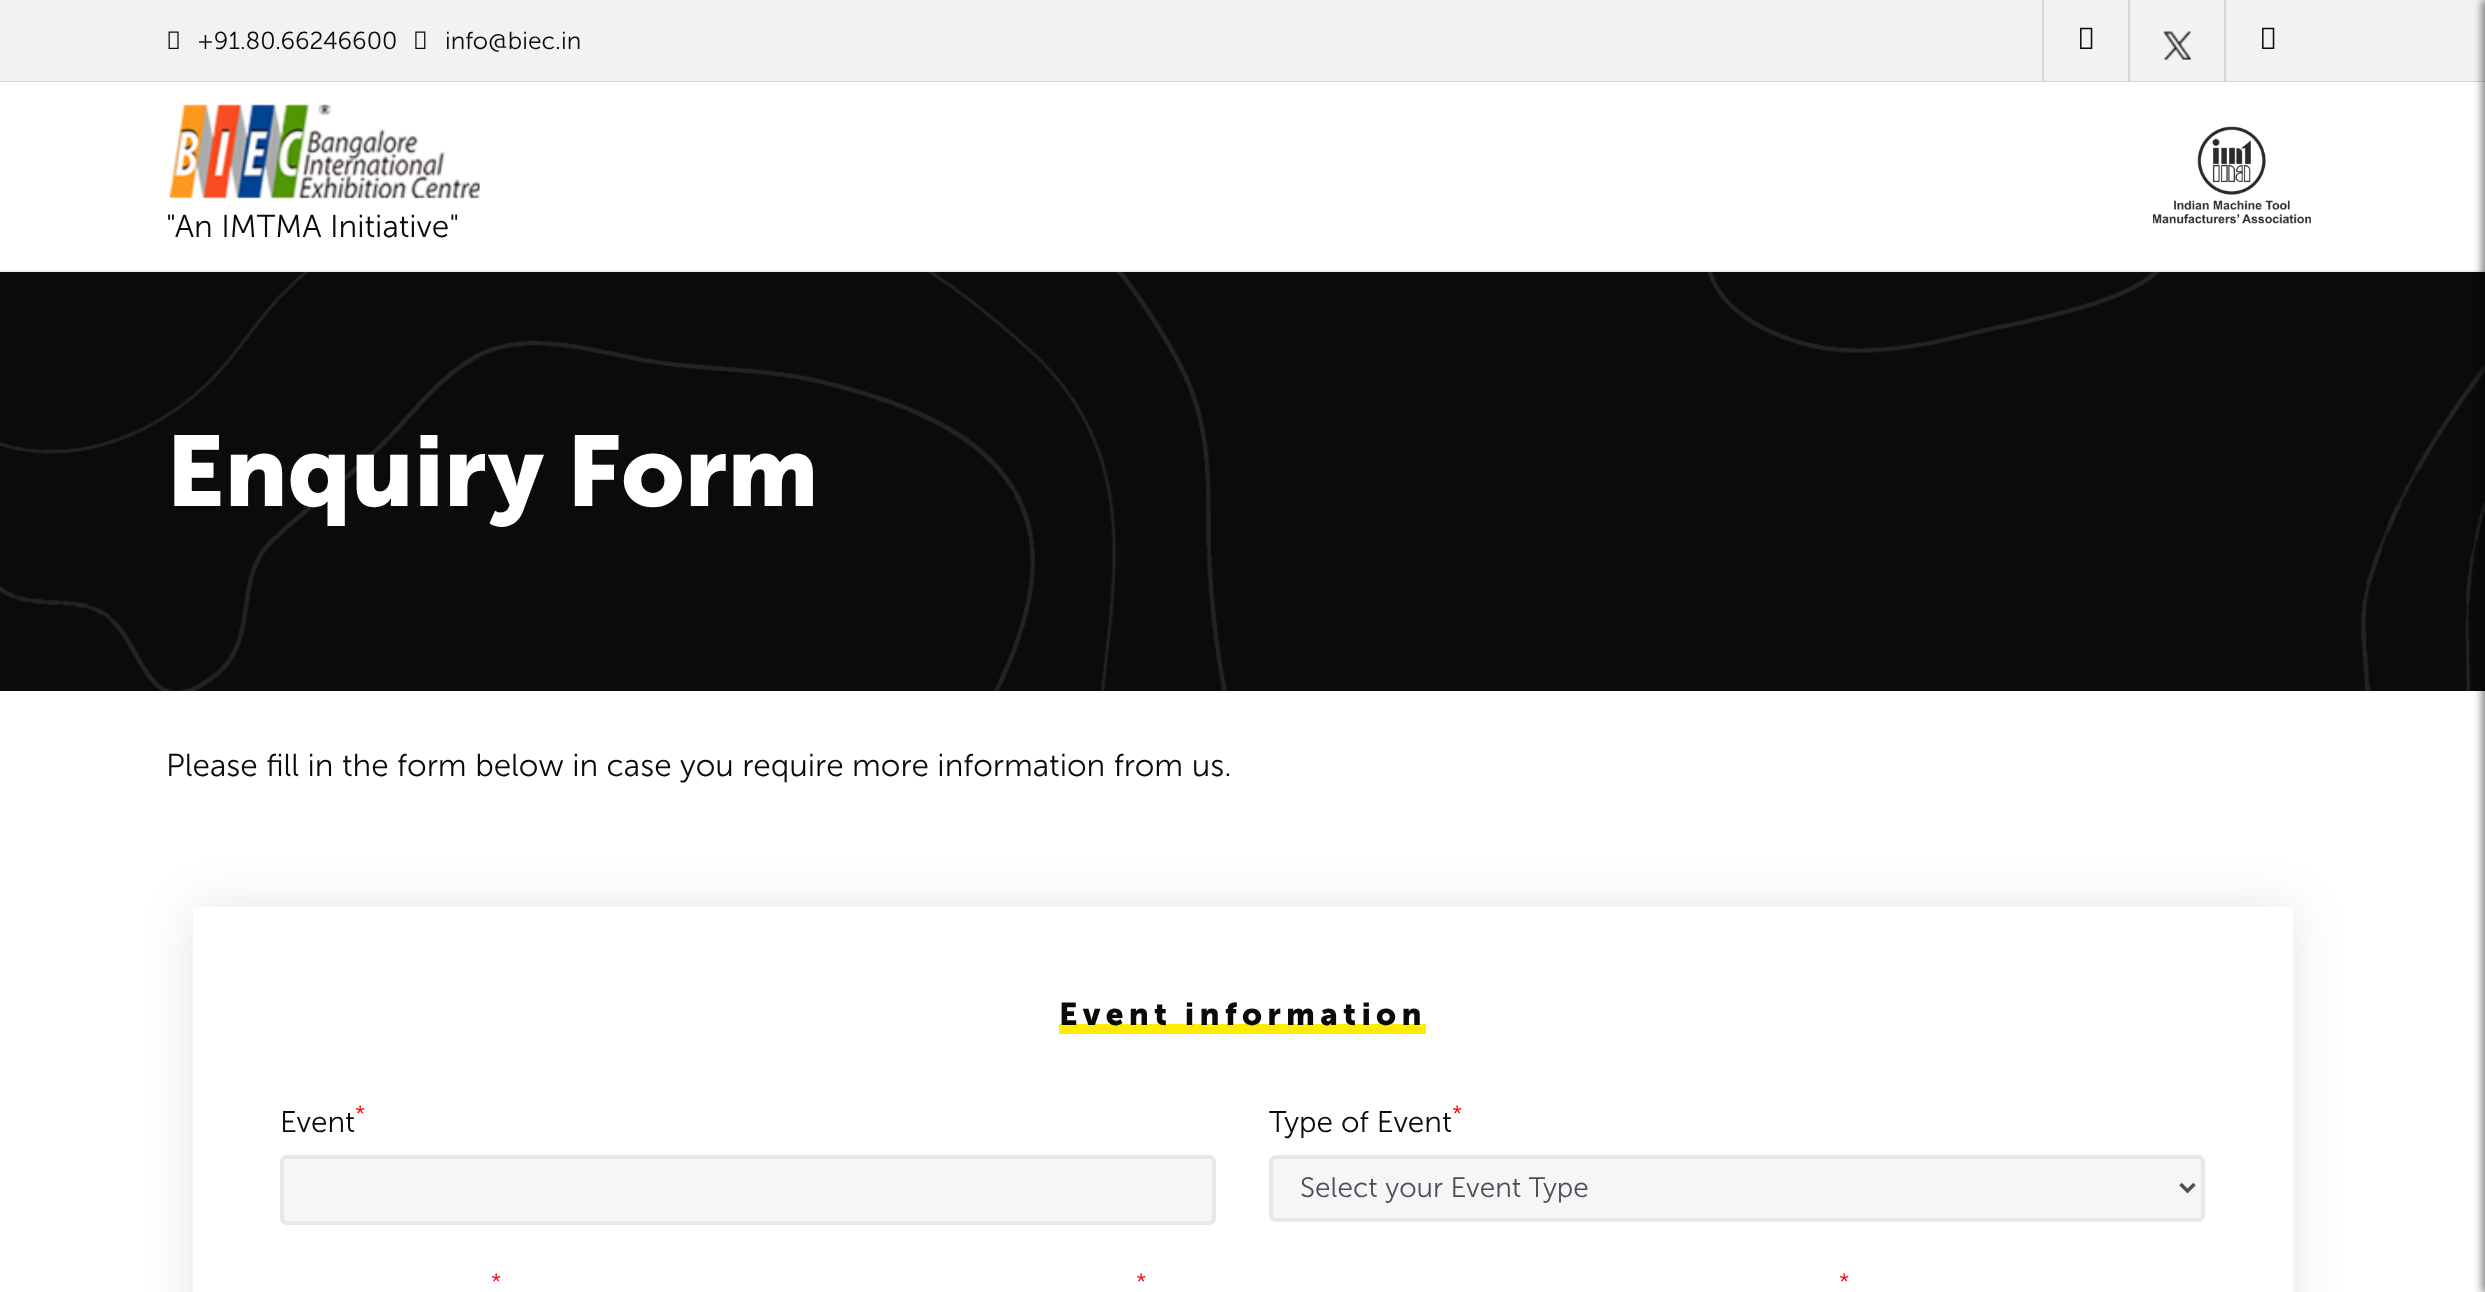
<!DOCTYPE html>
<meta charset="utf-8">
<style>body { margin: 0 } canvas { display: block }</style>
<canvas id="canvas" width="2485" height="1292"></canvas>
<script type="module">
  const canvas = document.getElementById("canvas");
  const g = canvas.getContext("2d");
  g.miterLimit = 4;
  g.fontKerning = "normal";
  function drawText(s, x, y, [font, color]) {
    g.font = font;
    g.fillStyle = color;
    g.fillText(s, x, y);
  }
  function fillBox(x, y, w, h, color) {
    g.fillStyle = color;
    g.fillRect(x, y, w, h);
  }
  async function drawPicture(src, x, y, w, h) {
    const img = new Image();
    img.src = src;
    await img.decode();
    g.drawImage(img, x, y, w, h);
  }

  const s1 = ["300 24.5px Museo Sans", "#0B0B0B"];
  const s2 = ["300 31.5px Museo Sans", "#0B0B0B"];
  const s3 = ["bold 99.5px Museo Sans", "#FFFFFF"];
  const s4 = ["bold 31.5px Museo Sans", "#0B0B0B"];
  const s5 = ["300 22px Museo Sans", "#FF0000"];
  const s6 = ["300 29.75px Museo Sans", "#0B0B0B"];
  const s7 = ["300 28px Museo Sans", "#495057"];

  fillBox(0, 0, 2485, 1292, "#FFFFFF");
  fillBox(0, 0, 2485, 81, "#F2F2F2");
  fillBox(0, 81, 2485, 1, "#D5D5D5");
  await drawPicture("pic1.png", 168, 31, 11, 18);
  drawText("+91.80.66246600", 197, 49, s1);
  await drawPicture("pic2.png", 415, 31, 11, 18);
  drawText("info@biec.in", 445, 49, s1);
  fillBox(2042, 0, 2, 81, "#D5D5D5");
  await drawPicture("pic3.png", 2080, 27, 13, 22);
  fillBox(2128, 0, 2, 81, "#D5D5D5");
  await drawPicture("pic4.png", 2163, 31, 28, 29);
  fillBox(2224, 0, 2, 81, "#D5D5D5");
  await drawPicture("pic3.png", 2262, 27, 13, 22);
  fillBox(0, 270, 2485, 2, "#EEEEEE");
  fillBox(0, 272, 2485, 419, "#0B0B0B");
  await drawPicture("pic7.png", 0, 272, 2485, 419);
  g.fillStyle = "rgba(0, 0, 0, 0.5)";
  g.filter = "blur(4.5px)";
  g.beginPath();
  g.rect(2482, 0, 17, 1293);
  g.fill();
  g.filter = "none";
  await drawPicture("pic5.png", 169, 104, 311, 95);
  drawText("\"An IMTMA Initiative\"", 166, 237, s2);
  await drawPicture("pic6.png", 2153, 126, 158, 98);
  drawText("Enquiry Form", 166, 506, s3);
  drawText("Please fill in the form below in case you require more information from us.", 166, 776, s2);
  g.fillStyle = "rgba(0, 0, 0, 0.1)";
  g.filter = "blur(26px)";
  g.beginPath();
  g.rect(193, 907, 2100, 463);
  g.fill();
  g.filter = "none";
  fillBox(193, 907, 2100, 385, "#FFFFFF");
  fillBox(1059, 1024, 367, 10, "#FEED01");
  g.letterSpacing = "5.25px";
  drawText("Event information", 1059, 1025, s4);
  g.letterSpacing = "0px";
  drawText("*", 355, 1121, s5);
  drawText("Event", 280, 1132, s6);
  g.fillStyle = "#F6F6F6";
  g.beginPath();
  g.roundRect(282, 1157, 932, 66, 5);
  g.fill();
  g.strokeStyle = "#E8E8E8";
  g.lineWidth = 4;
  g.stroke();
  drawText("Type of Event", 1269, 1132, s6);
  drawText("*", 1452, 1121, s5);
  g.fillStyle = "#F6F6F6";
  g.beginPath();
  g.roundRect(1271, 1157, 932, 63, 5);
  g.fill();
  g.stroke();
  g.beginPath();
  g.moveTo(2180.5, 1184);
  g.lineTo(2187.5, 1191);
  g.lineTo(2194.5, 1184);
  g.strokeStyle = "#495057";
  g.lineWidth = 3.5;
  g.stroke();
  drawText("Select your Event Type", 1300, 1197, s7);
  drawText("*", 491, 1289, s5);
  drawText("*", 1136, 1289, s5);
  drawText("*", 1839, 1289, s5);
</script>
